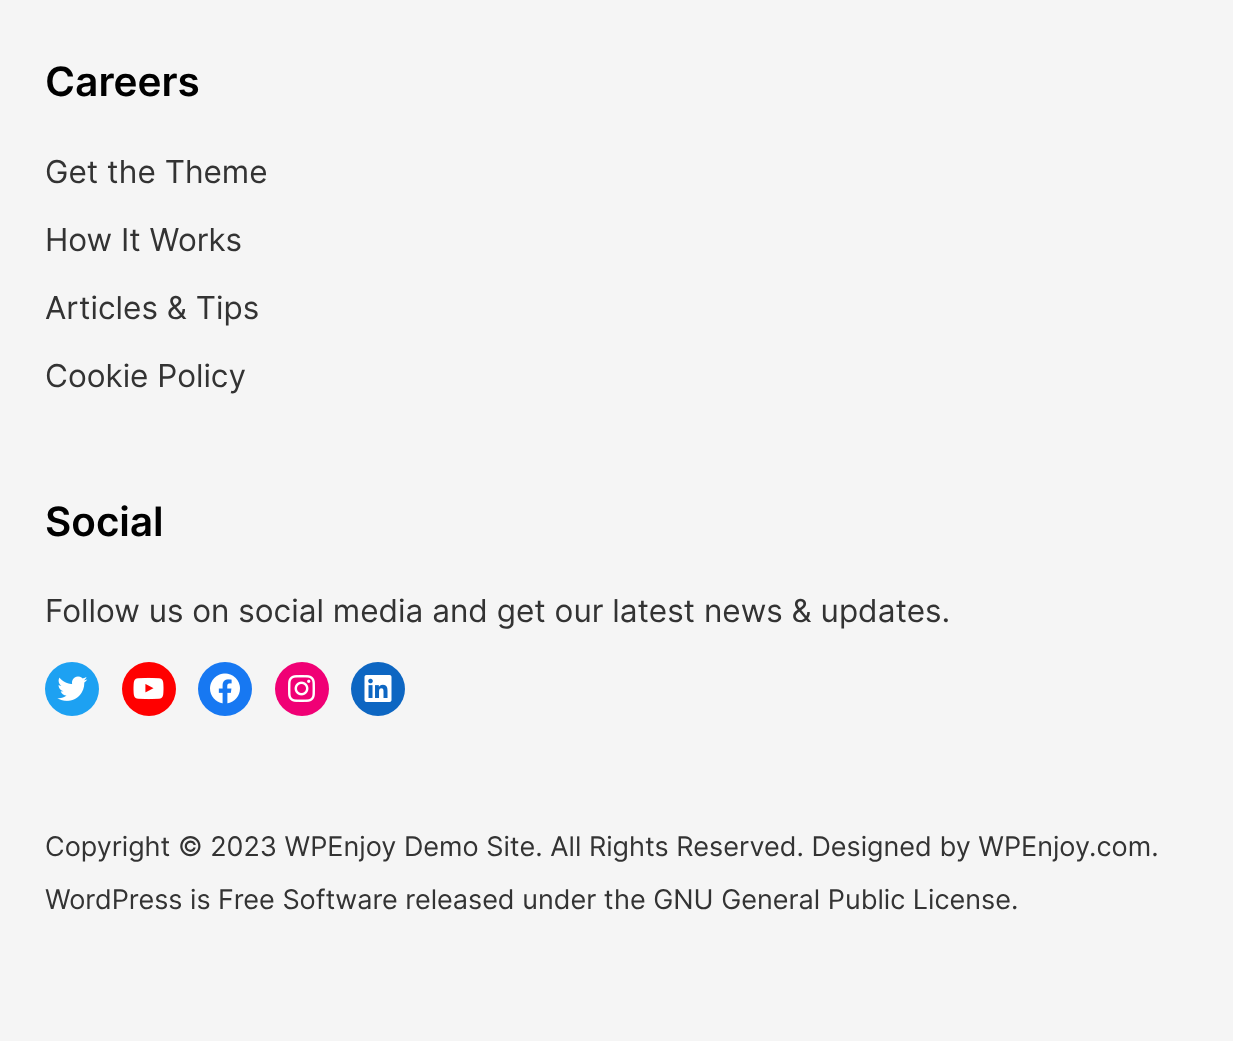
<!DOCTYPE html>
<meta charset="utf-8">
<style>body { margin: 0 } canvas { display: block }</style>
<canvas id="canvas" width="1233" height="1041"></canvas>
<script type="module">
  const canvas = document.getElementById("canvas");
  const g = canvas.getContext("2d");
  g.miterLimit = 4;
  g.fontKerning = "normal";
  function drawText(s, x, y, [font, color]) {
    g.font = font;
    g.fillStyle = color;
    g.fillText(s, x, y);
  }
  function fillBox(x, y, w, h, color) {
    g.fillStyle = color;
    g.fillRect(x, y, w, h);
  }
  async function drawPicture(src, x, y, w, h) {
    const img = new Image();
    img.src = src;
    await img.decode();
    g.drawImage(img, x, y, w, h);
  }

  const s1 = ["600 40.5px Inter", "#000000"];
  const s2 = ["31.5px Inter", "#333333"];
  const s3 = ["27px Inter", "#333333"];

  fillBox(0, 0, 1233, 1041, "#F5F5F5");
  drawText("Careers", 45, 96, s1);
  drawText("Get the Theme", 45, 183, s2);
  drawText("How It Works", 45, 251, s2);
  drawText("Articles & Tips", 45, 319, s2);
  drawText("Cookie Policy", 45, 387, s2);
  drawText("Social", 45, 536, s1);
  drawText("Follow us on social media and get our latest news & updates.", 45, 622, s2);
  g.fillStyle = "#1DA1F2";
  g.beginPath();
  g.arc(72, 689, 27, 0, Math.PI * 2);
  g.fill();
  await drawPicture("pic1.png", 57, 676, 31, 25);
  g.fillStyle = "#FF0000";
  g.beginPath();
  g.arc(149, 689, 27, 0, Math.PI * 2);
  g.fill();
  await drawPicture("pic2.png", 133, 677, 31, 23);
  g.fillStyle = "#1778F2";
  g.beginPath();
  g.arc(225, 689, 27, 0, Math.PI * 2);
  g.fill();
  await drawPicture("pic3.png", 210, 673, 30, 31);
  g.fillStyle = "#F00075";
  g.beginPath();
  g.arc(302, 689, 27, 0, Math.PI * 2);
  g.fill();
  await drawPicture("pic4.png", 288, 675, 27, 27);
  g.fillStyle = "#0D66C2";
  g.beginPath();
  g.arc(378, 689, 27, 0, Math.PI * 2);
  g.fill();
  await drawPicture("pic5.png", 364, 675, 28, 27);
  drawText("Copyright © 2023 WPEnjoy Demo Site. All Rights Reserved. Designed by WPEnjoy.com.", 45, 856, s3);
  drawText("WordPress is Free Software released under the GNU General Public License.", 45, 909, s3);
</script>
